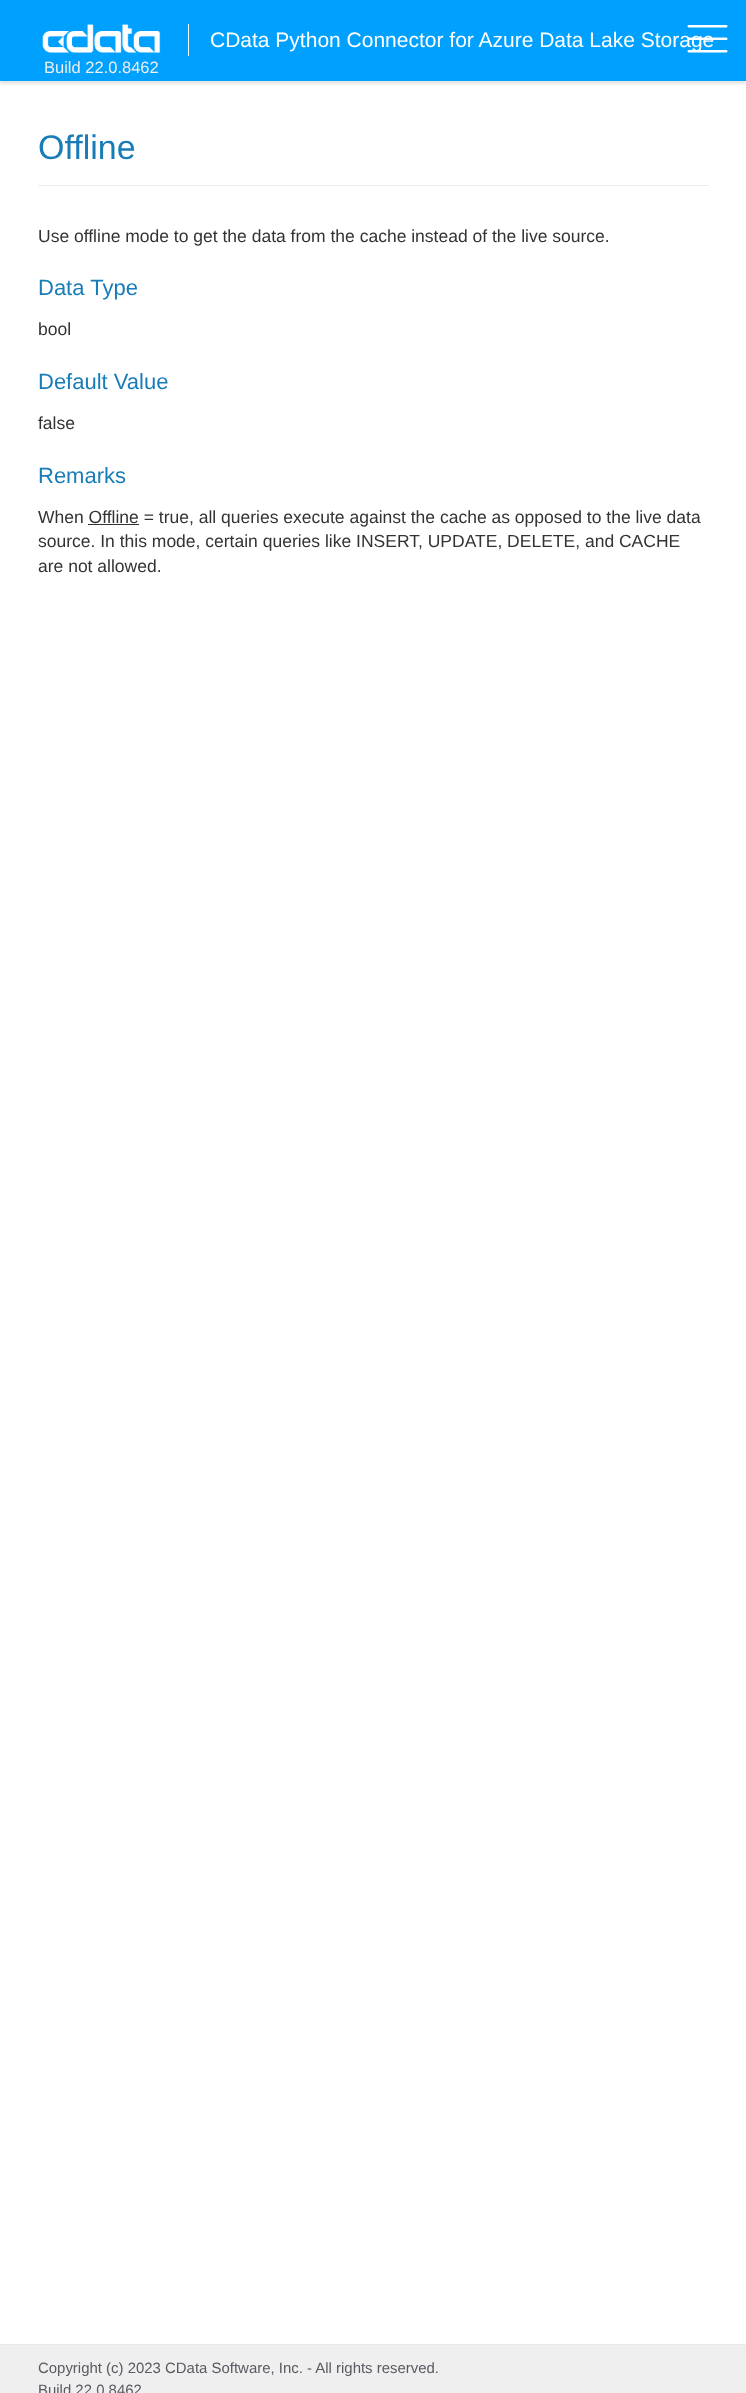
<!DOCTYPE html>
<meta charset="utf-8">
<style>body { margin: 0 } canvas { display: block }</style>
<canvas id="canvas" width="746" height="2393"></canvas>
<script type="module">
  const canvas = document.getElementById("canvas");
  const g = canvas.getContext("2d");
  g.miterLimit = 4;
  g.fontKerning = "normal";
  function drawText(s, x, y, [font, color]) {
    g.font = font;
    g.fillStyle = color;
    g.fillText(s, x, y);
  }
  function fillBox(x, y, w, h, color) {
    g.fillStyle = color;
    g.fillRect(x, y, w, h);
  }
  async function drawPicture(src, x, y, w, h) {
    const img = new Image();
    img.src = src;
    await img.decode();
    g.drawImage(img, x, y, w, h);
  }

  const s1 = ["21px Liberation Sans", "#FFFFFF"];
  const s2 = ["16.5px Liberation Sans", "#EFEFEF"];
  const s3 = ["34px Liberation Sans", "#177CB8"];
  const s4 = ["17.5px Liberation Sans", "#333333"];
  const s5 = ["22px Liberation Sans", "#177CB8"];
  const s6 = ["14.95px Liberation Sans", "#5C5962"];

  fillBox(0, 0, 746, 2393, "#FFFFFF");
  g.fillStyle = "rgba(0, 0, 0, 0.1)";
  g.filter = "blur(1px)";
  g.beginPath();
  g.rect(0, 3, 746, 81);
  g.fill();
  g.filter = "none";
  fillBox(0, 0, 746, 81, "#00A0FF");
  await drawPicture("pic1.png", 42, 24, 119, 29);
  drawText("CData Python Connector for Azure Data Lake Storage", 210, 47, s1);
  await drawPicture("pic2.png", 687, 25, 41, 28);
  fillBox(188, 24, 1, 32, "#FFFFFF");
  drawText("Build 22.0.8462", 44, 73, s2);
  fillBox(38, 185, 671, 1, "#EEEBEE");
  drawText("Offline", 38, 159, s3);
  drawText("Use offline mode to get the data from the cache instead of the live source.", 38, 242, s4);
  drawText("Data Type", 38, 295, s5);
  drawText("bool", 38, 335, s4);
  drawText("Default Value", 38, 389, s5);
  drawText("false", 38, 429, s4);
  drawText("Remarks", 38, 483, s5);
  drawText("When Offline = true, all queries execute against the cache as opposed to the live data", 38, 523, s4);
  fillBox(88, 524, 51, 1, "#333333");
  drawText("source. In this mode, certain queries like INSERT, UPDATE, DELETE, and CACHE", 38, 547, s4);
  drawText("are not allowed.", 38, 572, s4);
  fillBox(0, 2345, 746, 48, "#EFEFEF");
  fillBox(0, 2344, 746, 1, "#E8E8E8");
  drawText("Copyright (c) 2023 CData Software, Inc. - All rights reserved.", 38, 2373, s6);
  drawText("Build 22.0.8462", 38, 2395, s6);
</script>
